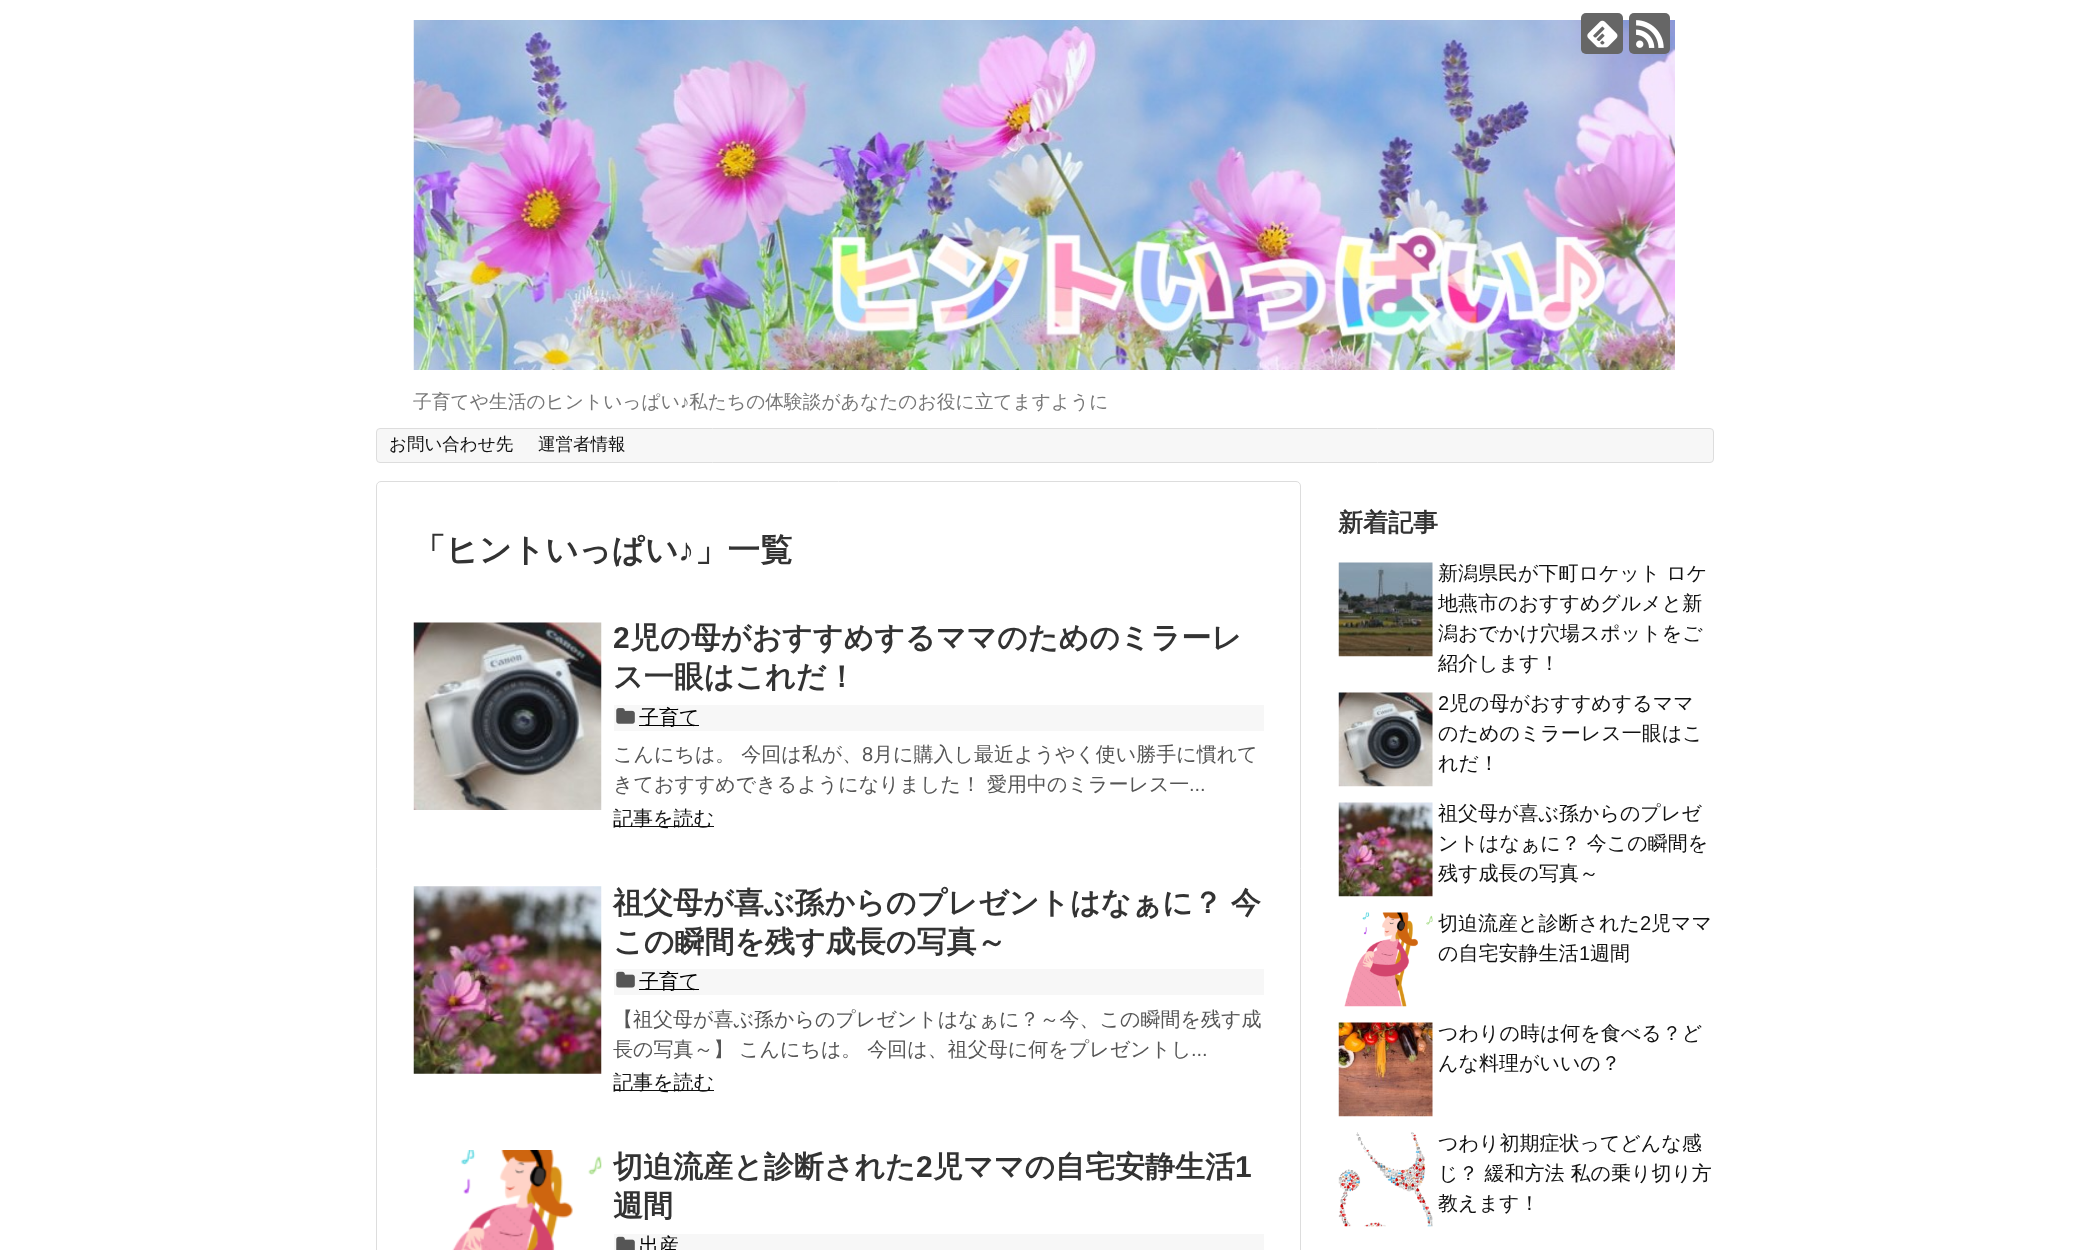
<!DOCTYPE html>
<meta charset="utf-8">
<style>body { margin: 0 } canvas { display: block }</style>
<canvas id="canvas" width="2088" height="1250"></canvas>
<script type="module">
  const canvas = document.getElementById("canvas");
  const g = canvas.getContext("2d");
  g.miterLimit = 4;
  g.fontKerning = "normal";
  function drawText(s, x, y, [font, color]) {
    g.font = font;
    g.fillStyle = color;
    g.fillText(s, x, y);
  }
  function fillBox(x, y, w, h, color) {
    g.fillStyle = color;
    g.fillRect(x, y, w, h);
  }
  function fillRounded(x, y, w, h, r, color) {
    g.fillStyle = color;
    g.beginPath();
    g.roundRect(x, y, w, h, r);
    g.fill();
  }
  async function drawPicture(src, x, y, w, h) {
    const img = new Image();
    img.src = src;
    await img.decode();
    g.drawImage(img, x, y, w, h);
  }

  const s1 = ["500 18.75px WenQuanYi Zen Hei", "#777777"];
  const s2 = ["18.75px Liberation Sans", "#777777"];
  const s3 = ["500 17.5px WenQuanYi Zen Hei", "#111111"];
  const s4 = ["bold 32.5px WenQuanYi Zen Hei", "#333333"];
  const s5 = ["bold 32.5px Liberation Sans", "#333333"];
  const s6 = ["bold 30px Liberation Sans", "#333333"];
  const s7 = ["bold 30px WenQuanYi Zen Hei", "#333333"];
  const s8 = ["500 20px WenQuanYi Zen Hei", "#000000"];
  const s9 = ["500 20px WenQuanYi Zen Hei", "#555555"];
  const s10 = ["20px Liberation Sans", "#555555"];
  const s11 = ["500 20px WenQuanYi Zen Hei", "#111111"];
  const s12 = ["bold 25px WenQuanYi Zen Hei", "#333333"];
  const s13 = ["20px Liberation Sans", "#111111"];

  fillBox(0, 0, 2088, 1250, "#FFFFFF");
  await drawPicture("pic3.png", 413, 20, 1262, 350);
  fillRounded(1581, 13, 42, 41, 5, "#666666");
  await drawPicture("pic1.png", 1587, 20, 31, 28);
  fillRounded(1629, 13, 41, 41, 5, "#666666");
  await drawPicture("pic2.png", 1636, 20, 28, 28);
  drawText("子育てや生活のヒントいっぱい", 413, 408, s1);
  drawText("♪", 680, 408, s2);
  drawText("私たちの体験談があなたのお役に立てますように", 689, 408, s1);
  g.fillStyle = "#F7F7F7";
  g.beginPath();
  g.roundRect(376.5, 428.5, 1337, 34, 3.5);
  g.fill();
  g.strokeStyle = "#DDDDDD";
  g.stroke();
  drawText("お問い合わせ先", 389, 450, s3);
  drawText("運営者情報", 538, 450, s3);
  g.beginPath();
  g.roundRect(376.5, 481.5, 924, 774, 4.5);
  g.stroke();
  drawText("「ヒントいっぱい", 413, 561, s4);
  drawText("♪", 678, 561, s5);
  drawText("」一覧", 695, 561, s4);
  await drawPicture("pic4.png", 413, 622, 189, 188);
  drawText("2", 613, 648, s6);
  drawText("児の母がおすすめするママのためのミラーレ", 630, 648, s7);
  drawText("ス一眼はこれだ！", 613, 687, s7);
  fillBox(614, 705, 650, 26, "#F7F7F7");
  await drawPicture("pic5.png", 616, 708, 19, 16);
  fillBox(639, 725, 60, 1, "#000000");
  drawText("子育て", 639, 724, s8);
  drawText("こんにちは。 今回は私が、", 613, 761, s9);
  drawText("8", 862, 761, s10);
  drawText("月に購入し最近ようやく使い勝手に慣れて", 873, 761, s9);
  drawText("きておすすめできるようになりました！", 613, 791, s9);
  drawText("愛用中のミラーレス一", 987, 791, s9);
  drawText("...", 1189, 791, s10);
  fillBox(614, 826, 100, 1, "#111111");
  drawText("記事を読む", 613, 825, s11);
  await drawPicture("pic6.png", 413, 886, 189, 188);
  g.wordSpacing = "-1px";
  drawText("祖父母が喜ぶ孫からのプレゼントはなぁに？ 今", 613, 913, s7);
  g.wordSpacing = "0px";
  drawText("この瞬間を残す成長の写真～", 613, 952, s7);
  fillBox(614, 969, 650, 26, "#F7F7F7");
  await drawPicture("pic7.png", 616, 971, 19, 17);
  fillBox(639, 989, 60, 1, "#000000");
  drawText("子育て", 639, 988, s8);
  drawText("【祖父母が喜ぶ孫からのプレゼントはなぁに？～今、この瞬間を残す成", 613, 1026, s9);
  drawText("長の写真～】", 613, 1056, s9);
  drawText("こんにちは。 今回は、祖父母に何をプレゼントし", 739, 1056, s9);
  drawText("...", 1191, 1056, s10);
  fillBox(614, 1090, 100, 1, "#111111");
  drawText("記事を読む", 613, 1089, s11);
  await drawPicture("pic8.png", 452, 1150, 150, 100);
  drawText("切迫流産と診断された", 613, 1177, s7);
  drawText("2", 916, 1177, s6);
  drawText("児ママの自宅安静生活", 933, 1177, s7);
  drawText("1", 1235, 1177, s6);
  drawText("週間", 613, 1216, s7);
  fillBox(614, 1234, 650, 16, "#F7F7F7");
  await drawPicture("pic9.png", 616, 1236, 19, 14);
  drawText("出産", 639, 1252, s8);
  drawText("新着記事", 1338, 531, s12);
  await drawPicture("pic10.png", 1338, 562, 95, 95);
  drawText("新潟県民が下町ロケット ロケ", 1438, 580, s11);
  drawText("地燕市のおすすめグルメと新", 1438, 610, s11);
  drawText("潟おでかけ穴場スポットをご", 1438, 640, s11);
  drawText("紹介します！", 1438, 670, s11);
  await drawPicture("pic11.png", 1338, 692, 95, 95);
  drawText("2", 1438, 710, s13);
  drawText("児の母がおすすめするママ", 1449, 710, s11);
  drawText("のためのミラーレス一眼はこ", 1438, 740, s11);
  drawText("れだ！", 1438, 770, s11);
  await drawPicture("pic12.png", 1338, 802, 95, 95);
  drawText("祖父母が喜ぶ孫からのプレゼ", 1438, 820, s11);
  drawText("ントはなぁに？ 今この瞬間を", 1438, 850, s11);
  drawText("残す成長の写真～", 1438, 880, s11);
  await drawPicture("pic13.png", 1344, 912, 89, 95);
  drawText("切迫流産と診断された", 1438, 930, s11);
  drawText("2", 1640, 930, s13);
  drawText("児ママ", 1651, 930, s11);
  drawText("の自宅安静生活", 1438, 960, s11);
  drawText("1", 1579, 960, s13);
  drawText("週間", 1590, 960, s11);
  await drawPicture("pic14.png", 1338, 1022, 95, 95);
  drawText("つわりの時は何を食べる？ど", 1438, 1040, s11);
  drawText("んな料理がいいの？", 1438, 1070, s11);
  await drawPicture("pic15.png", 1338, 1132, 95, 95);
  drawText("つわり初期症状ってどんな感", 1438, 1150, s11);
  drawText("じ？ 緩和方法 私の乗り切り方", 1438, 1180, s11);
  drawText("教えます！", 1438, 1210, s11);
</script>
